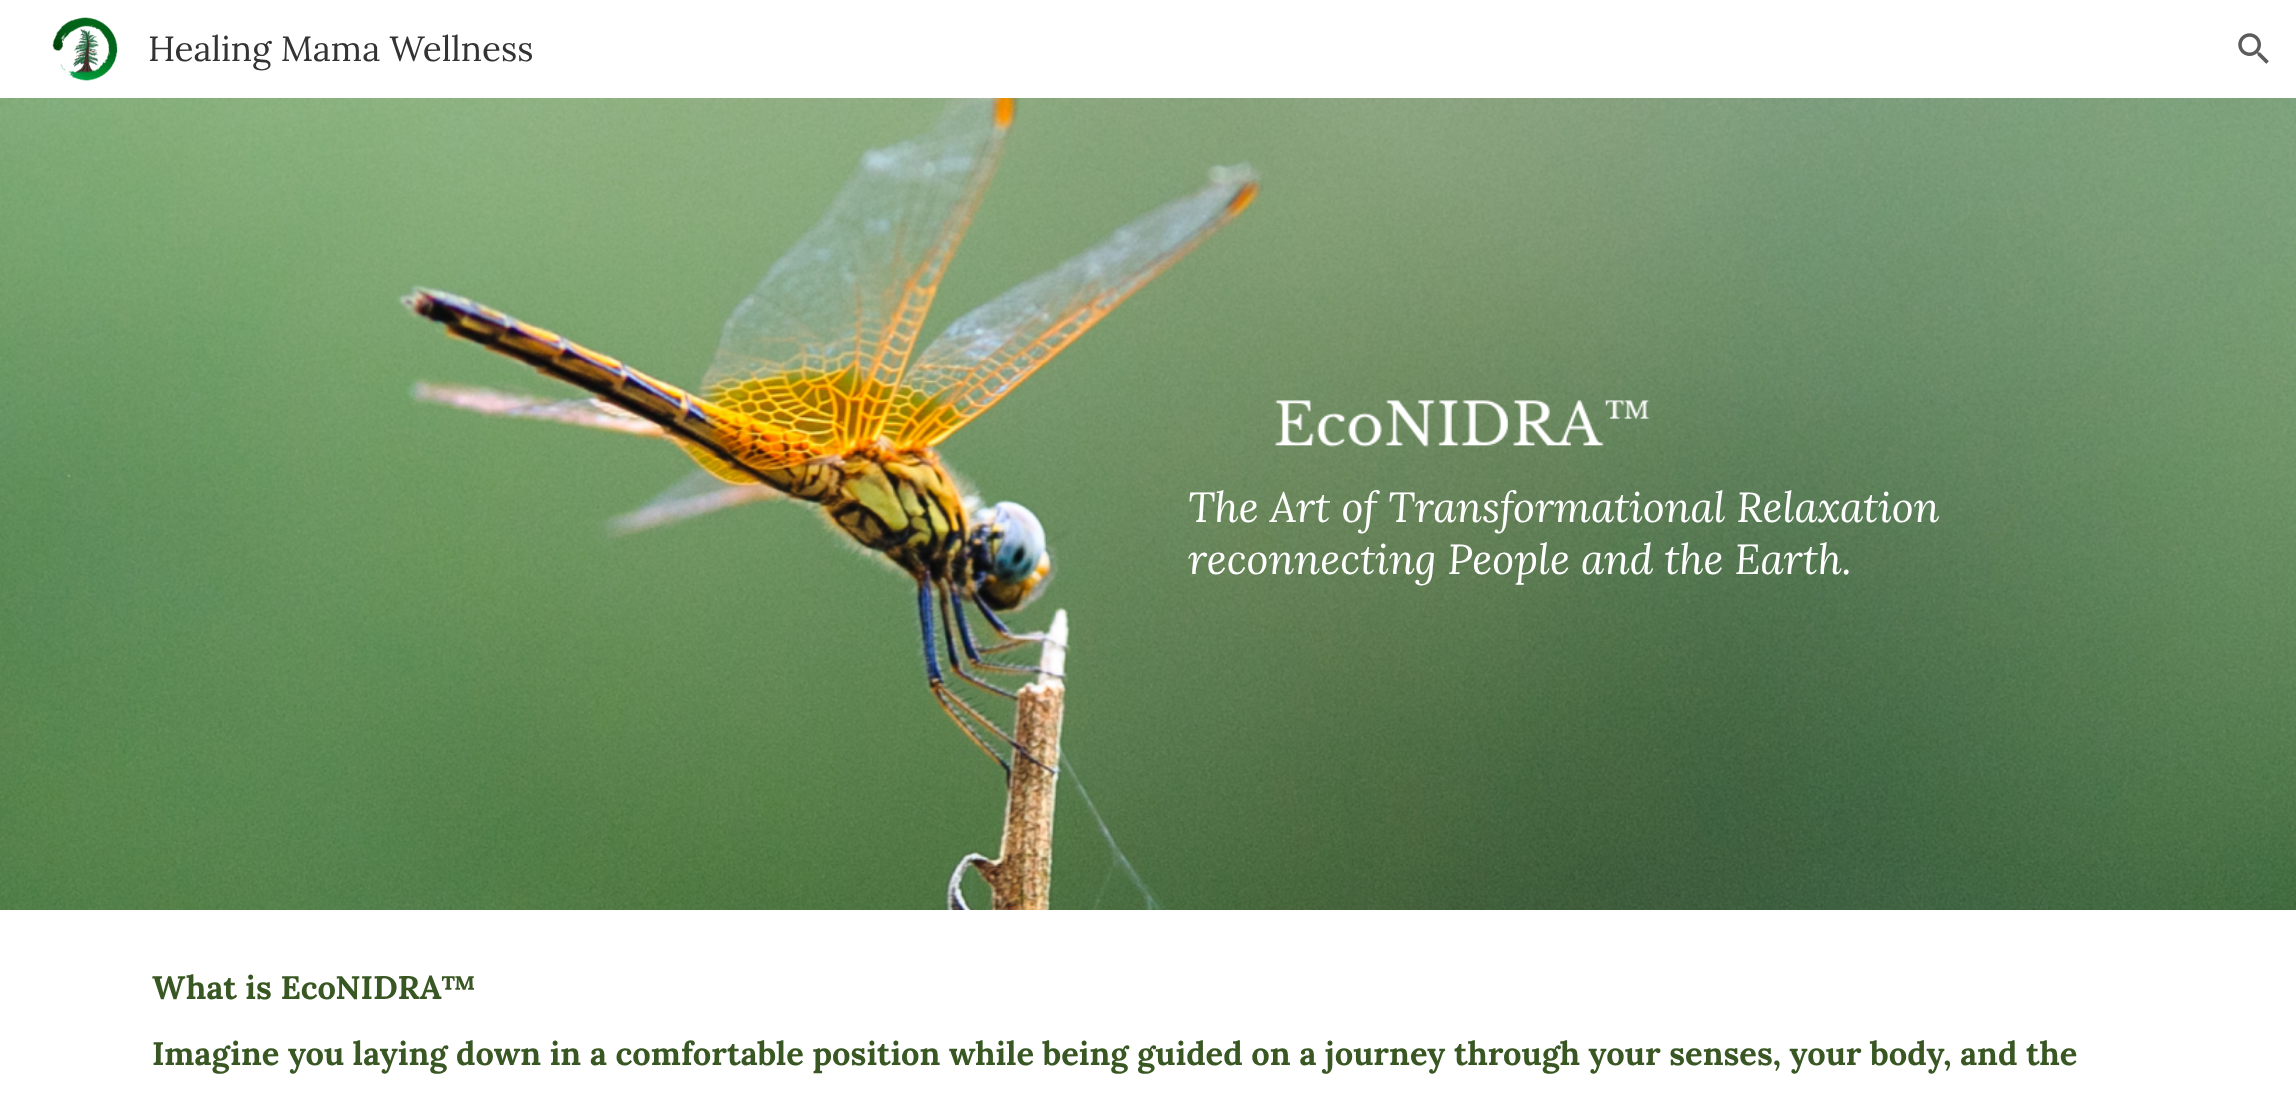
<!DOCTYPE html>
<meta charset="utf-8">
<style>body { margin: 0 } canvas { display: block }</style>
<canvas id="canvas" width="2296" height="1095"></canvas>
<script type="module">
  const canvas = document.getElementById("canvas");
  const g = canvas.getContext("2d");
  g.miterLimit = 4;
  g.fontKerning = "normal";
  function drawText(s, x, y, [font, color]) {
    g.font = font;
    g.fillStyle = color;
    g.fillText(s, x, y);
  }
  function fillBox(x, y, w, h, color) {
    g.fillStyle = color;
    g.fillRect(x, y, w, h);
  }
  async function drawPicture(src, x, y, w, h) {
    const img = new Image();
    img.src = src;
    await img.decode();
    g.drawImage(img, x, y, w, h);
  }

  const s1 = ["35px Lora", "#333333"];
  const s2 = ["italic 42px Lora", "#FFFFFF"];
  const s3 = ["bold 32.67px Lora", "#385723"];

  fillBox(0, 0, 2296, 1095, "#FFFFFF");
  await drawPicture("pic1.png", 52, 17, 66, 64);
  drawText("Healing Mama Wellness", 148, 61, s1);
  await drawPicture("pic2.png", 2238, 33, 31, 31);
  await drawPicture("pic3.png", 0, 98, 2296, 812);
  drawText("The Art of Transformational Relaxation", 1188, 522, s2);
  drawText("reconnecting People and the Earth.", 1188, 574, s2);
  drawText("What is EcoNIDRA™", 152, 999, s3);
  drawText("Imagine you laying down in a comfortable position while being guided on a journey through your senses, your body, and the", 152, 1065, s3);
</script>
